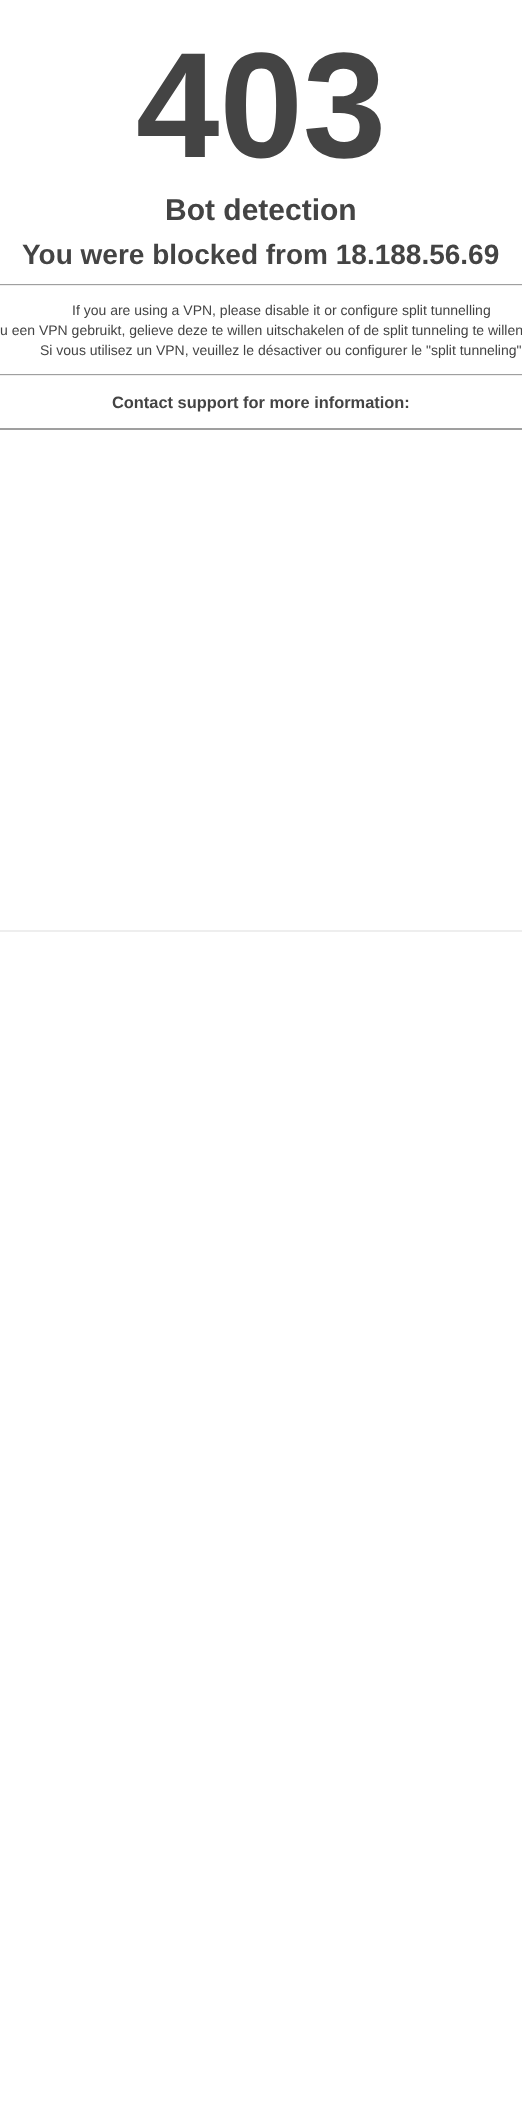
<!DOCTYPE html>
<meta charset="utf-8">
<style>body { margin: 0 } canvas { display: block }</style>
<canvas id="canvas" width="522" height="2122"></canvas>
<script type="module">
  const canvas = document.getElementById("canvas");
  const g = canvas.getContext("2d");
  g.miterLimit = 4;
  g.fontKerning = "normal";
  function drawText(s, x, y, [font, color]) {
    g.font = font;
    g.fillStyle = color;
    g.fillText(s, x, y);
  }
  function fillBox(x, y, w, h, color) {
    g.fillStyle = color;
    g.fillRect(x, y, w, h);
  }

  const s1 = ["bold 150px Liberation Sans", "#444444"];
  const s2 = ["bold 30px Liberation Sans", "#444444"];
  const s3 = ["bold 28px Liberation Sans", "#444444"];
  const s4 = ["14px Liberation Sans", "#444444"];
  const s5 = ["bold 16.4px Liberation Sans", "#444444"];

  fillBox(0, 0, 522, 2122, "#FFFFFF");
  drawText("403", 136, 157, s1);
  drawText("Bot detection", 165, 220, s2);
  drawText("You were blocked from 18.188.56.69", 22, 264, s3);
  fillBox(0, 284, 522, 1, "#9F9F9F");
  fillBox(0, 285, 522, 1, "#EEEEEE");
  drawText("If you are using a VPN, please disable it or configure split tunnelling", 72, 315, s4);
  drawText("u een VPN gebruikt, gelieve deze te willen uitschakelen of de split tunneling te willen", 0, 335, s4);
  drawText("Si vous utilisez un VPN, veuillez le désactiver ou configurer le \"split tunneling\"", 40, 355, s4);
  fillBox(0, 374, 522, 1, "#9F9F9F");
  fillBox(0, 375, 522, 1, "#EEEEEE");
  drawText("Contact support for more information:", 112, 408, s5);
  g.fillStyle = "#9F9F9F";
  g.beginPath();
  g.moveTo(-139, 428);
  g.lineTo(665, 428);
  g.lineTo(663, 430);
  g.lineTo(-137, 430);
  g.closePath();
  g.fill();
  g.fillStyle = "#EEEEEE";
  g.beginPath();
  g.moveTo(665, 932);
  g.lineTo(-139, 932);
  g.lineTo(-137, 930);
  g.lineTo(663, 930);
  g.closePath();
  g.fill();
</script>
